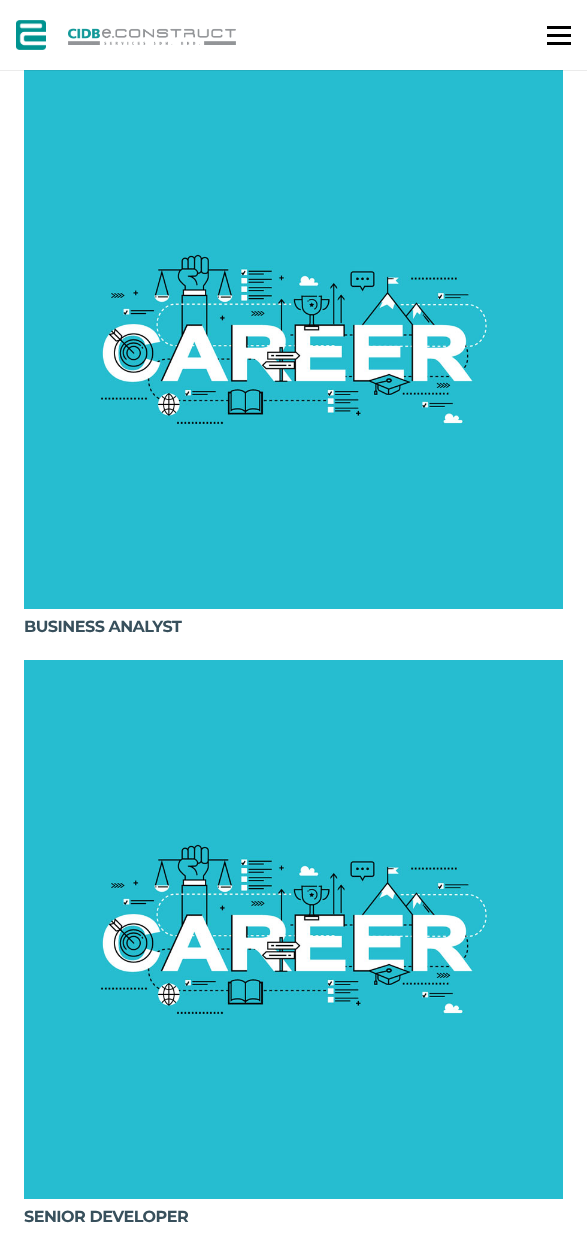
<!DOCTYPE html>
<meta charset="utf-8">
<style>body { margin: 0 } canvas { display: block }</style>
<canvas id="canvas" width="587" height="1239"></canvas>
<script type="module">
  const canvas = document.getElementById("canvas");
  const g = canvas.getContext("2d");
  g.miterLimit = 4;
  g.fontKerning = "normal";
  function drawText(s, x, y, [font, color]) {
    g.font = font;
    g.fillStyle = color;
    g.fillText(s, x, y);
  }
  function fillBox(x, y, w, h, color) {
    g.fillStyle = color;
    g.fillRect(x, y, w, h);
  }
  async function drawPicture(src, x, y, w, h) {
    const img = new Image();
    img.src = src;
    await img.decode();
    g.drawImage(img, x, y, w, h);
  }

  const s1 = ["100 16px Montserrat", "#38505C"];

  fillBox(0, 0, 587, 1239, "#FFFFFF");
  await drawPicture("pic3.png", 24, 70, 539, 539);
  fillBox(0, 70, 587, 1, "rgba(0, 0, 0, 0.08)");
  await drawPicture("pic1.png", 16, 20, 30, 30);
  await drawPicture("pic2.png", 68, 28, 168, 17);
  fillBox(547, 34, 24, 3, "#000000");
  fillBox(547, 26, 24, 3, "#000000");
  fillBox(547, 42, 24, 3, "#000000");
  g.letterSpacing = "-0.5px";
  drawText("BUSINESS ANALYST", 24, 632, s1);
  await drawPicture("pic3.png", 24, 660, 539, 539);
  drawText("SENIOR DEVELOPER", 24, 1222, s1);
</script>
